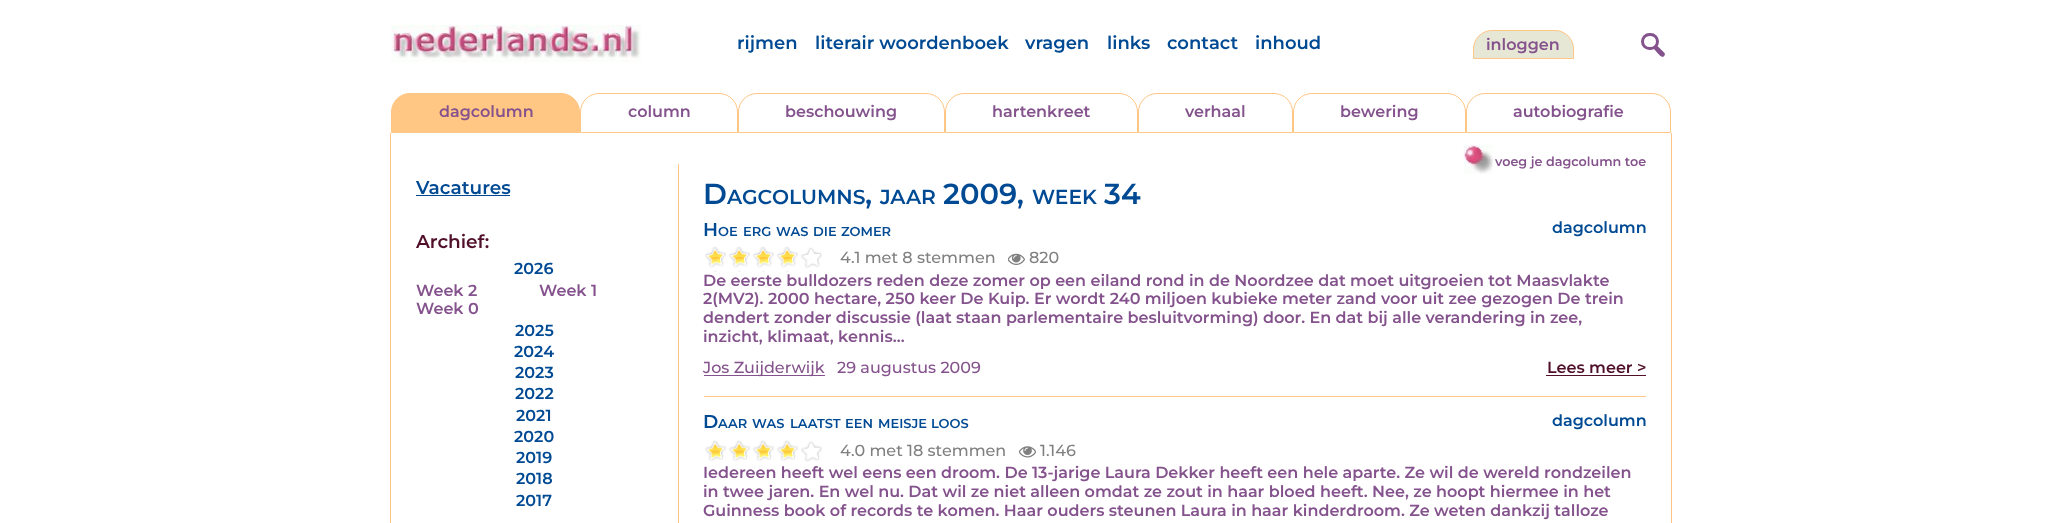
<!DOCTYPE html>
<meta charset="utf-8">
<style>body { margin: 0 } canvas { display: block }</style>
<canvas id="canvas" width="2062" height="523"></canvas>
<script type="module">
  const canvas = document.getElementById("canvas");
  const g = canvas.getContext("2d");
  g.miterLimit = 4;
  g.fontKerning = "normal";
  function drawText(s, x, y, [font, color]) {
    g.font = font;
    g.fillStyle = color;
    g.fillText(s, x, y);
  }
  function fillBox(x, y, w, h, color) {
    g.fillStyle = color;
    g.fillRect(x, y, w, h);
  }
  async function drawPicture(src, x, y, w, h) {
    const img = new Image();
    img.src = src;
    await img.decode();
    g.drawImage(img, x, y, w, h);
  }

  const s1 = ["100 18px Montserrat", "#004A94"];
  const s2 = ["100 16px Montserrat", "#84528C"];
  const s3 = ["100 12.75px Montserrat", "#84528C"];
  const s4 = ["100 18.5px Montserrat", "#004A94"];
  const s5 = ["100 18.5px Montserrat", "#50102A"];
  const s6 = ["100 16px Montserrat", "#004A94"];
  const s7 = ["100 29px Montserrat", "#004A94"];
  const s8 = ["100 20.25px Montserrat", "#004A94"];
  const s9 = ["100 13px Montserrat", "#004A94"];
  const s10 = ["100 16px 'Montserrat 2'", "#808080"];
  const s11 = ["100 16px 'Montserrat 2'", "#84528C"];
  const s12 = ["100 16px Montserrat", "#50102A"];

  fillBox(0, 0, 2062, 523, "#FFFFFF");
  await drawPicture("pic1.png", 391, 25, 250, 37);
  drawText("rijmen", 737, 49, s1);
  drawText("literair woordenboek", 815, 49, s1);
  drawText("vragen", 1025, 49, s1);
  drawText("links", 1107, 49, s1);
  drawText("contact", 1167, 49, s1);
  drawText("inhoud", 1255, 49, s1);
  g.fillStyle = "#E7E7D6";
  g.beginPath();
  g.roundRect(1473.5, 30.5, 100, 28, [18.5, 18.5, 0, 0]);
  g.fill();
  g.strokeStyle = "#FFC684";
  g.stroke();
  drawText("inloggen", 1486, 50, s2);
  g.beginPath();
  g.roundRect(1642.5, 34.5, 15, 14, 7);
  g.strokeStyle = "#84528C";
  g.lineWidth = 3;
  g.stroke();
  g.beginPath();
  g.moveTo(1658, 46.5);
  g.lineTo(1662, 50.5);
  g.bezierCurveTo(1663.5, 52, 1666, 53.5, 1664.5, 55.5);
  g.lineTo(1663, 57);
  g.bezierCurveTo(1660.5, 57, 1659, 54.5, 1657.5, 53);
  g.lineTo(1654, 49);
  g.bezierCurveTo(1653, 46.5, 1656, 44.5, 1658, 46.5);
  g.closePath();
  g.fill();
  g.fillStyle = "#FFC684";
  g.beginPath();
  g.roundRect(391.5, 93.5, 188, 39, [18.5, 18.5, 0, 0]);
  g.fill();
  g.strokeStyle = "#FFC684";
  g.lineWidth = 1;
  g.stroke();
  drawText("dagcolumn", 439, 117, s2);
  g.beginPath();
  g.roundRect(580.5, 93.5, 157, 39, [18.5, 18.5, 0, 0]);
  g.stroke();
  drawText("column", 628, 117, s2);
  g.beginPath();
  g.roundRect(738.5, 93.5, 206, 39, [18.5, 18.5, 0, 0]);
  g.stroke();
  drawText("beschouwing", 785, 117, s2);
  g.beginPath();
  g.roundRect(945.5, 93.5, 192, 39, [18.5, 18.5, 0, 0]);
  g.stroke();
  drawText("hartenkreet", 992, 117, s2);
  g.beginPath();
  g.roundRect(1138.5, 93.5, 154, 39, [18.5, 18.5, 0, 0]);
  g.stroke();
  drawText("verhaal", 1185, 117, s2);
  g.beginPath();
  g.roundRect(1293.5, 93.5, 172, 39, [18.5, 18.5, 0, 0]);
  g.stroke();
  drawText("bewering", 1340, 117, s2);
  g.beginPath();
  g.roundRect(1466.5, 93.5, 204, 39, [18.5, 18.5, 0, 0]);
  g.stroke();
  drawText("autobiografie", 1513, 117, s2);
  fillBox(1671, 133, 1, 390, "#FFC684");
  fillBox(390, 133, 1, 390, "#FFC684");
  await drawPicture("pic2.png", 1463, 145, 30, 29);
  drawText("voeg je dagcolumn toe", 1495, 166, s3);
  fillBox(678, 164, 1, 359, "#FFC684");
  drawText("Vacatures", 416, 194, s4);
  fillBox(416, 195, 94, 1, "#004A94");
  drawText("Archief:", 416, 248, s5);
  drawText("2026", 514, 274, s6);
  drawText("Week 2", 416, 296, s2);
  drawText("Week 1", 539, 296, s2);
  drawText("Week 0", 416, 314, s2);
  drawText("2025", 515, 336, s6);
  drawText("2024", 514, 357, s6);
  drawText("2023", 515, 378, s6);
  drawText("2022", 515, 399, s6);
  drawText("2021", 516, 421, s6);
  drawText("2020", 514, 442, s6);
  drawText("2019", 516, 463, s6);
  drawText("2018", 516, 484, s6);
  drawText("2017", 516, 506, s6);
  drawText("D", 703, 204, s7);
  drawText("AGCOLUMNS", 727, 204, s8);
  drawText(",", 865, 204, s7);
  drawText("JAAR", 880, 204, s8);
  drawText("2009,", 943, 204, s7);
  drawText("WEEK", 1032, 204, s8);
  drawText("34", 1104, 204, s7);
  drawText("H", 703, 236, s4);
  drawText("OE", 718, 236, s9);
  drawText("ERG", 743, 236, s9);
  drawText("WAS", 776, 236, s9);
  drawText("DIE", 813, 236, s9);
  drawText("ZOMER", 841, 236, s9);
  drawText("dagcolumn", 1552, 233, s6);
  await drawPicture("pic3.png", 705, 247, 117, 25);
  await drawPicture("pic4.png", 705, 246, 93, 26);
  drawText("4.1 met 8 stemmen", 840, 263, s10);
  await drawPicture("pic5.png", 1008, 253, 17, 12);
  drawText("820", 1029, 263, s10);
  drawText("De eerste bulldozers reden deze zomer op een eiland rond in de Noordzee dat moet uitgroeien tot Maasvlakte", 703, 286, s2);
  drawText("2(MV2). 2000 hectare, 250 keer De Kuip. Er wordt 240 miljoen kubieke meter zand voor uit zee gezogen De trein", 703, 304, s2);
  drawText("dendert zonder discussie (laat staan parlementaire besluitvorming) door. En dat bij alle verandering in zee,", 703, 323, s2);
  drawText("inzicht, klimaat, kennis…", 703, 342, s2);
  fillBox(704, 375, 121, 1, "#84528C");
  drawText("Jos Zuijderwijk", 703, 373, s11);
  drawText("29 augustus 2009", 837, 373, s11);
  drawText("Lees meer >", 1547, 373, s12);
  fillBox(1546, 375, 100, 1, "#50102A");
  fillBox(704, 396, 942, 1, "#FFC684");
  drawText("D", 703, 428, s4);
  drawText("AAR", 718, 428, s9);
  drawText("WAS", 752, 428, s9);
  drawText("LAATST", 790, 428, s9);
  drawText("EEN", 845, 428, s9);
  drawText("MEISJE", 878, 428, s9);
  drawText("LOOS", 931, 428, s9);
  drawText("dagcolumn", 1552, 426, s6);
  await drawPicture("pic6.png", 798, 441, 24, 21);
  await drawPicture("pic7.png", 705, 440, 93, 22);
  drawText("4.0 met 18 stemmen", 840, 456, s10);
  await drawPicture("pic8.png", 1019, 446, 17, 12);
  drawText("1.146", 1040, 456, s10);
  drawText("Iedereen heeft wel eens een droom. De 13-jarige Laura Dekker heeft een hele aparte. Ze wil de wereld rondzeilen", 703, 478, s2);
  drawText("in twee jaren. En wel nu. Dat wil ze niet alleen omdat ze zout in haar bloed heeft. Nee, ze hoopt hiermee in het", 703, 497, s2);
  drawText("Guinness book of records te komen. Haar ouders steunen Laura in haar kinderdroom. Ze weten dankzij talloze", 703, 516, s2);
</script>
